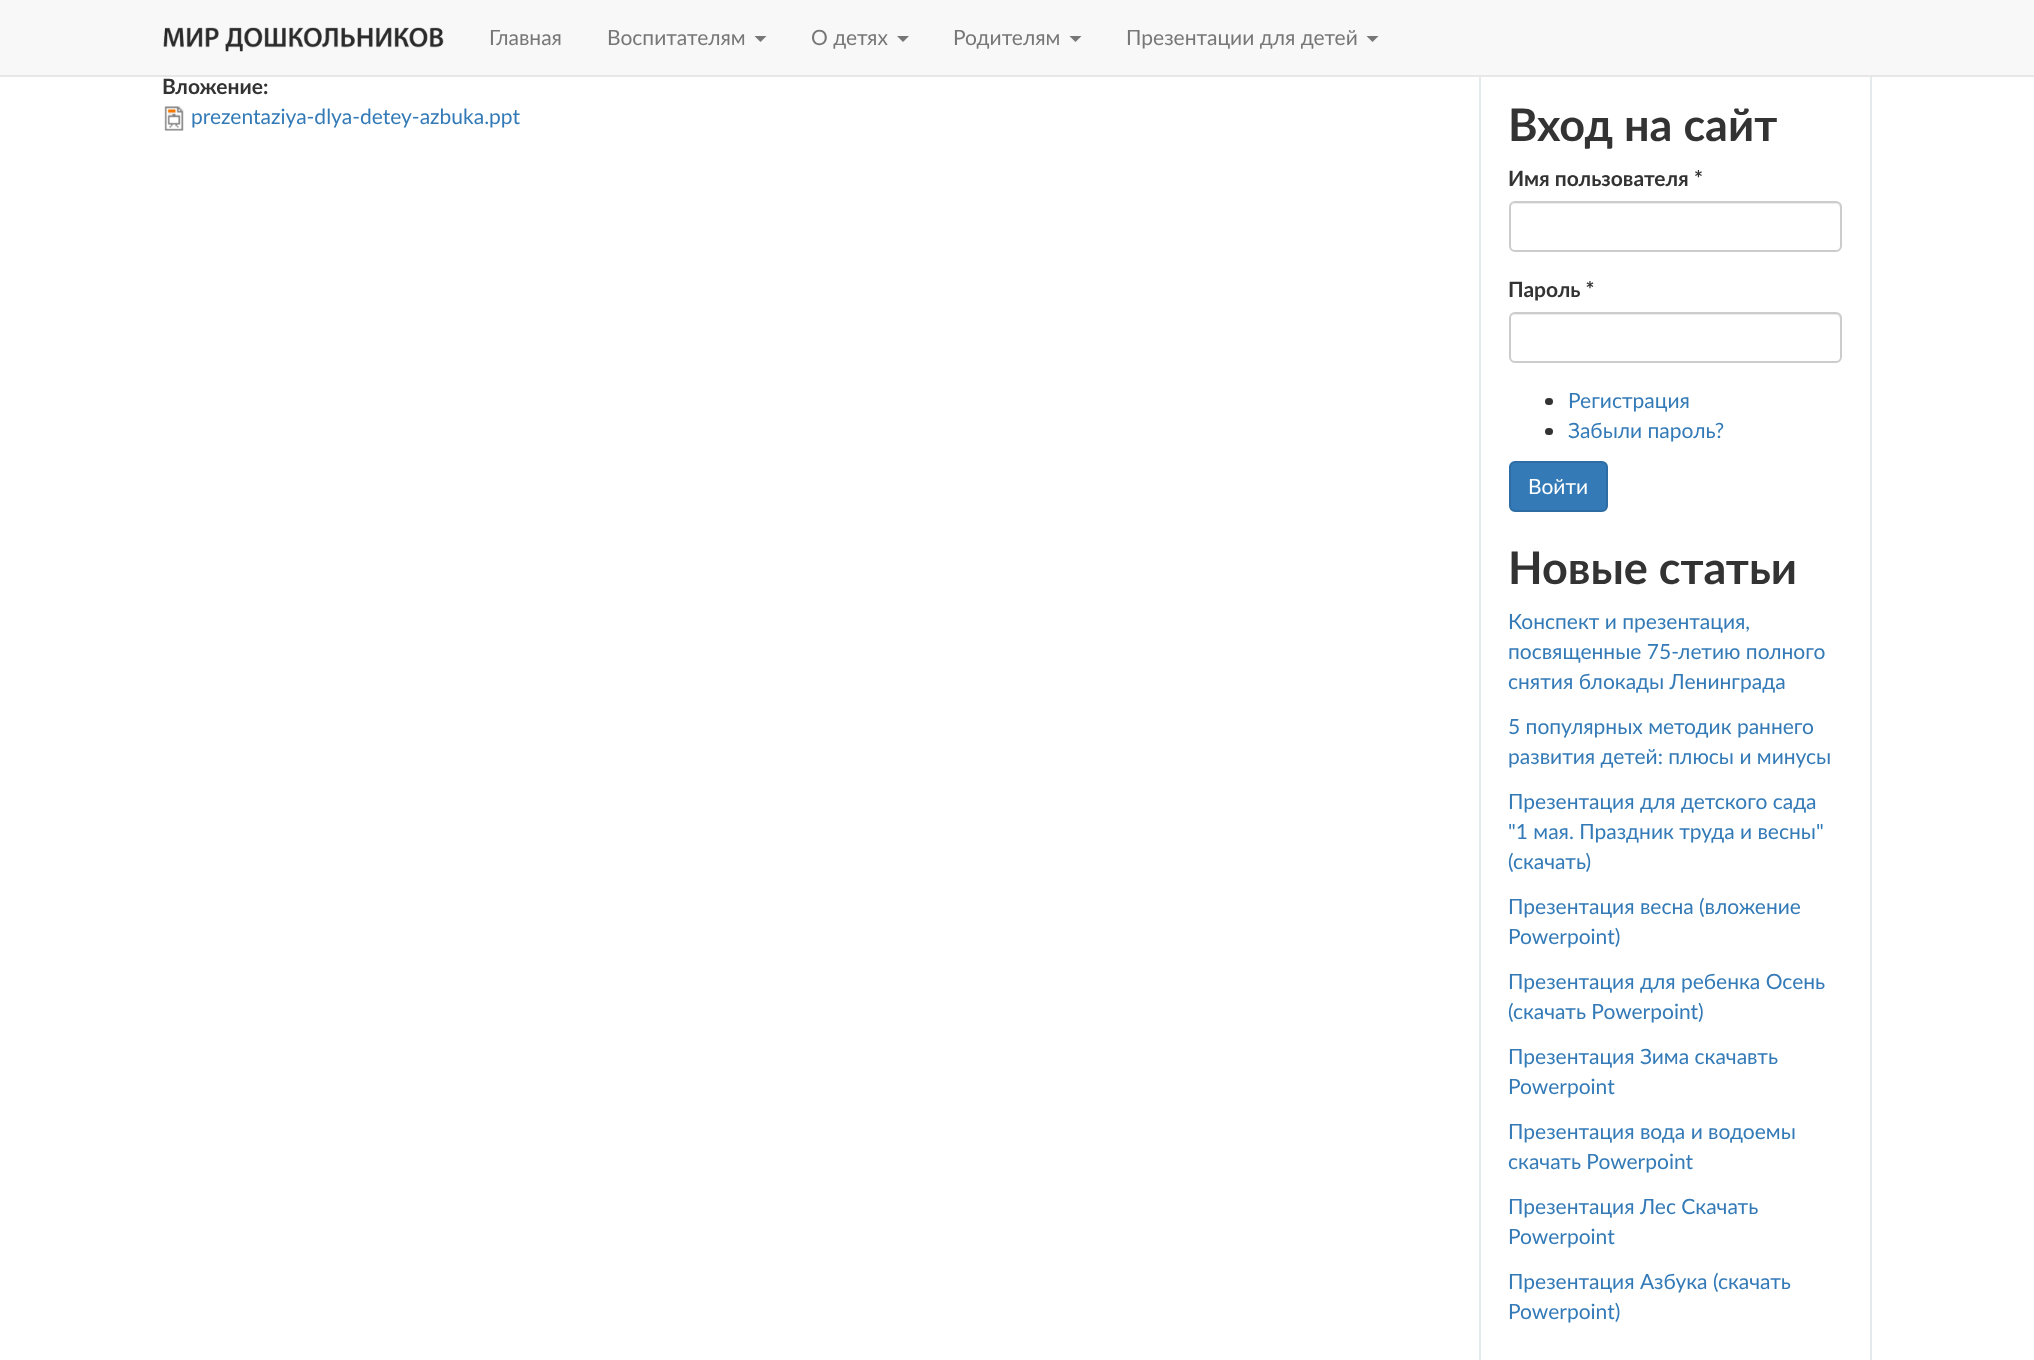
<!DOCTYPE html>
<meta charset="utf-8">
<style>body { margin: 0 } canvas { display: block }</style>
<canvas id="canvas" width="2034" height="1360"></canvas>
<script type="module">
  const canvas = document.getElementById("canvas");
  const g = canvas.getContext("2d");
  g.miterLimit = 4;
  g.fontKerning = "normal";
  function drawText(s, x, y, [font, color]) {
    g.font = font;
    g.fillStyle = color;
    g.fillText(s, x, y);
  }
  function fillBox(x, y, w, h, color) {
    g.fillStyle = color;
    g.fillRect(x, y, w, h);
  }
  function fillRounded(x, y, w, h, r, color) {
    g.fillStyle = color;
    g.beginPath();
    g.roundRect(x, y, w, h, r);
    g.fill();
  }
  async function drawPicture(src, x, y, w, h) {
    const img = new Image();
    img.src = src;
    await img.decode();
    g.drawImage(img, x, y, w, h);
  }

  const s1 = ["21px Lato", "#777777"];
  const s2 = ["bold 21px Lato", "#333333"];
  const s3 = ["21px Lato", "#337AB7"];
  const s4 = ["bold 45px Lato", "#333333"];
  const s5 = ["21px Lato", "#FFFFFF"];

  fillBox(0, 0, 2034, 1360, "#FFFFFF");
  g.strokeStyle = "#E4EAEC";
  g.lineWidth = 2;
  g.strokeRect(1480, -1, 391, 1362);
  fillBox(0, 0, 2034, 75, "#F8F8F8");
  fillBox(0, 75, 2034, 2, "#E7E7E7");
  await drawPicture("pic1.png", 163, 27, 281, 25);
  drawText("Главная", 489, 45, s1);
  drawText("Воспитателям", 607, 45, s1);
  g.beginPath();
  g.moveTo(754.5, 36);
  g.lineTo(766.5, 36);
  g.lineTo(760.5, 42);
  g.closePath();
  g.fill();
  drawText("О детях", 811, 45, s1);
  g.beginPath();
  g.moveTo(897, 36);
  g.lineTo(909, 36);
  g.lineTo(903, 42);
  g.closePath();
  g.fill();
  drawText("Родителям", 953, 45, s1);
  g.beginPath();
  g.moveTo(1069.5, 36);
  g.lineTo(1081.5, 36);
  g.lineTo(1075.5, 42);
  g.closePath();
  g.fill();
  drawText("Презентации для детей", 1126, 45, s1);
  g.beginPath();
  g.moveTo(1366.5, 36);
  g.lineTo(1378.5, 36);
  g.lineTo(1372.5, 42);
  g.closePath();
  g.fill();
  drawText("Вложение:", 162, 94, s2);
  await drawPicture("pic2.png", 164, 106, 20, 25);
  drawText("prezentaziya-dlya-detey-azbuka.ppt", 191, 124, s3);
  drawText("Вход на сайт", 1508, 141, s4);
  drawText("Имя пользователя *", 1508, 186, s2);
  g.fillStyle = "#ECECEC";
  g.beginPath();
  g.moveTo(1515, 204);
  g.lineTo(1836, 204);
  g.bezierCurveTo(1838, 204, 1840, 206, 1840, 208);
  g.lineTo(1840, 249);
  g.bezierCurveTo(1841, 248, 1841, 247, 1841, 246);
  g.lineTo(1841, 208);
  g.bezierCurveTo(1841, 205, 1839, 203, 1836, 203);
  g.lineTo(1516, 203);
  g.bezierCurveTo(1514, 203, 1513, 204, 1512, 205);
  g.closePath();
  g.fill();
  g.beginPath();
  g.roundRect(1510, 202, 331, 49, 5);
  g.strokeStyle = "#CCCCCC";
  g.stroke();
  drawText("Пароль *", 1508, 297, s2);
  g.fillStyle = "#ECECEC";
  g.beginPath();
  g.moveTo(1515, 315);
  g.lineTo(1836, 315);
  g.bezierCurveTo(1838, 315, 1840, 317, 1840, 320);
  g.lineTo(1840, 358);
  g.lineTo(1839, 361);
  g.bezierCurveTo(1840, 360, 1841, 358, 1841, 357);
  g.lineTo(1841, 319);
  g.bezierCurveTo(1841, 316, 1839, 314, 1836, 314);
  g.lineTo(1516, 314);
  g.bezierCurveTo(1514, 314, 1513, 315, 1512, 316);
  g.closePath();
  g.fill();
  g.beginPath();
  g.roundRect(1510, 313, 331, 49, 5);
  g.stroke();
  fillRounded(1545, 398, 8, 7, 3.5, "#333333");
  drawText("Регистрация", 1568, 408, s3);
  fillRounded(1545, 428, 8, 7, 3.5, "#333333");
  drawText("Забыли пароль?", 1568, 438, s3);
  g.beginPath();
  g.roundRect(1510, 462, 97, 49, 5);
  g.fill();
  g.strokeStyle = "#2E6DA4";
  g.stroke();
  drawText("Войти", 1528, 494, s5);
  drawText("Новые статьи", 1508, 584, s4);
  drawText("Конспект и презентация,", 1508, 629, s3);
  drawText("посвященные 75-летию полного", 1508, 659, s3);
  drawText("снятия блокады Ленинграда", 1508, 689, s3);
  drawText("5 популярных методик раннего", 1508, 734, s3);
  drawText("развития детей: плюсы и минусы", 1508, 764, s3);
  drawText("Презентация для детского сада", 1508, 809, s3);
  drawText("\"1 мая. Праздник труда и весны\"", 1508, 839, s3);
  drawText("(скачать)", 1508, 869, s3);
  drawText("Презентация весна (вложение", 1508, 914, s3);
  drawText("Powerpoint)", 1508, 944, s3);
  drawText("Презентация для ребенка Осень", 1508, 989, s3);
  drawText("(скачать Powerpoint)", 1508, 1019, s3);
  drawText("Презентация Зима скачавть", 1508, 1064, s3);
  drawText("Powerpoint", 1508, 1094, s3);
  drawText("Презентация вода и водоемы", 1508, 1139, s3);
  drawText("скачать Powerpoint", 1508, 1169, s3);
  drawText("Презентация Лес Скачать", 1508, 1214, s3);
  drawText("Powerpoint", 1508, 1244, s3);
  drawText("Презентация Азбука (скачать", 1508, 1289, s3);
  drawText("Powerpoint)", 1508, 1319, s3);
</script>
